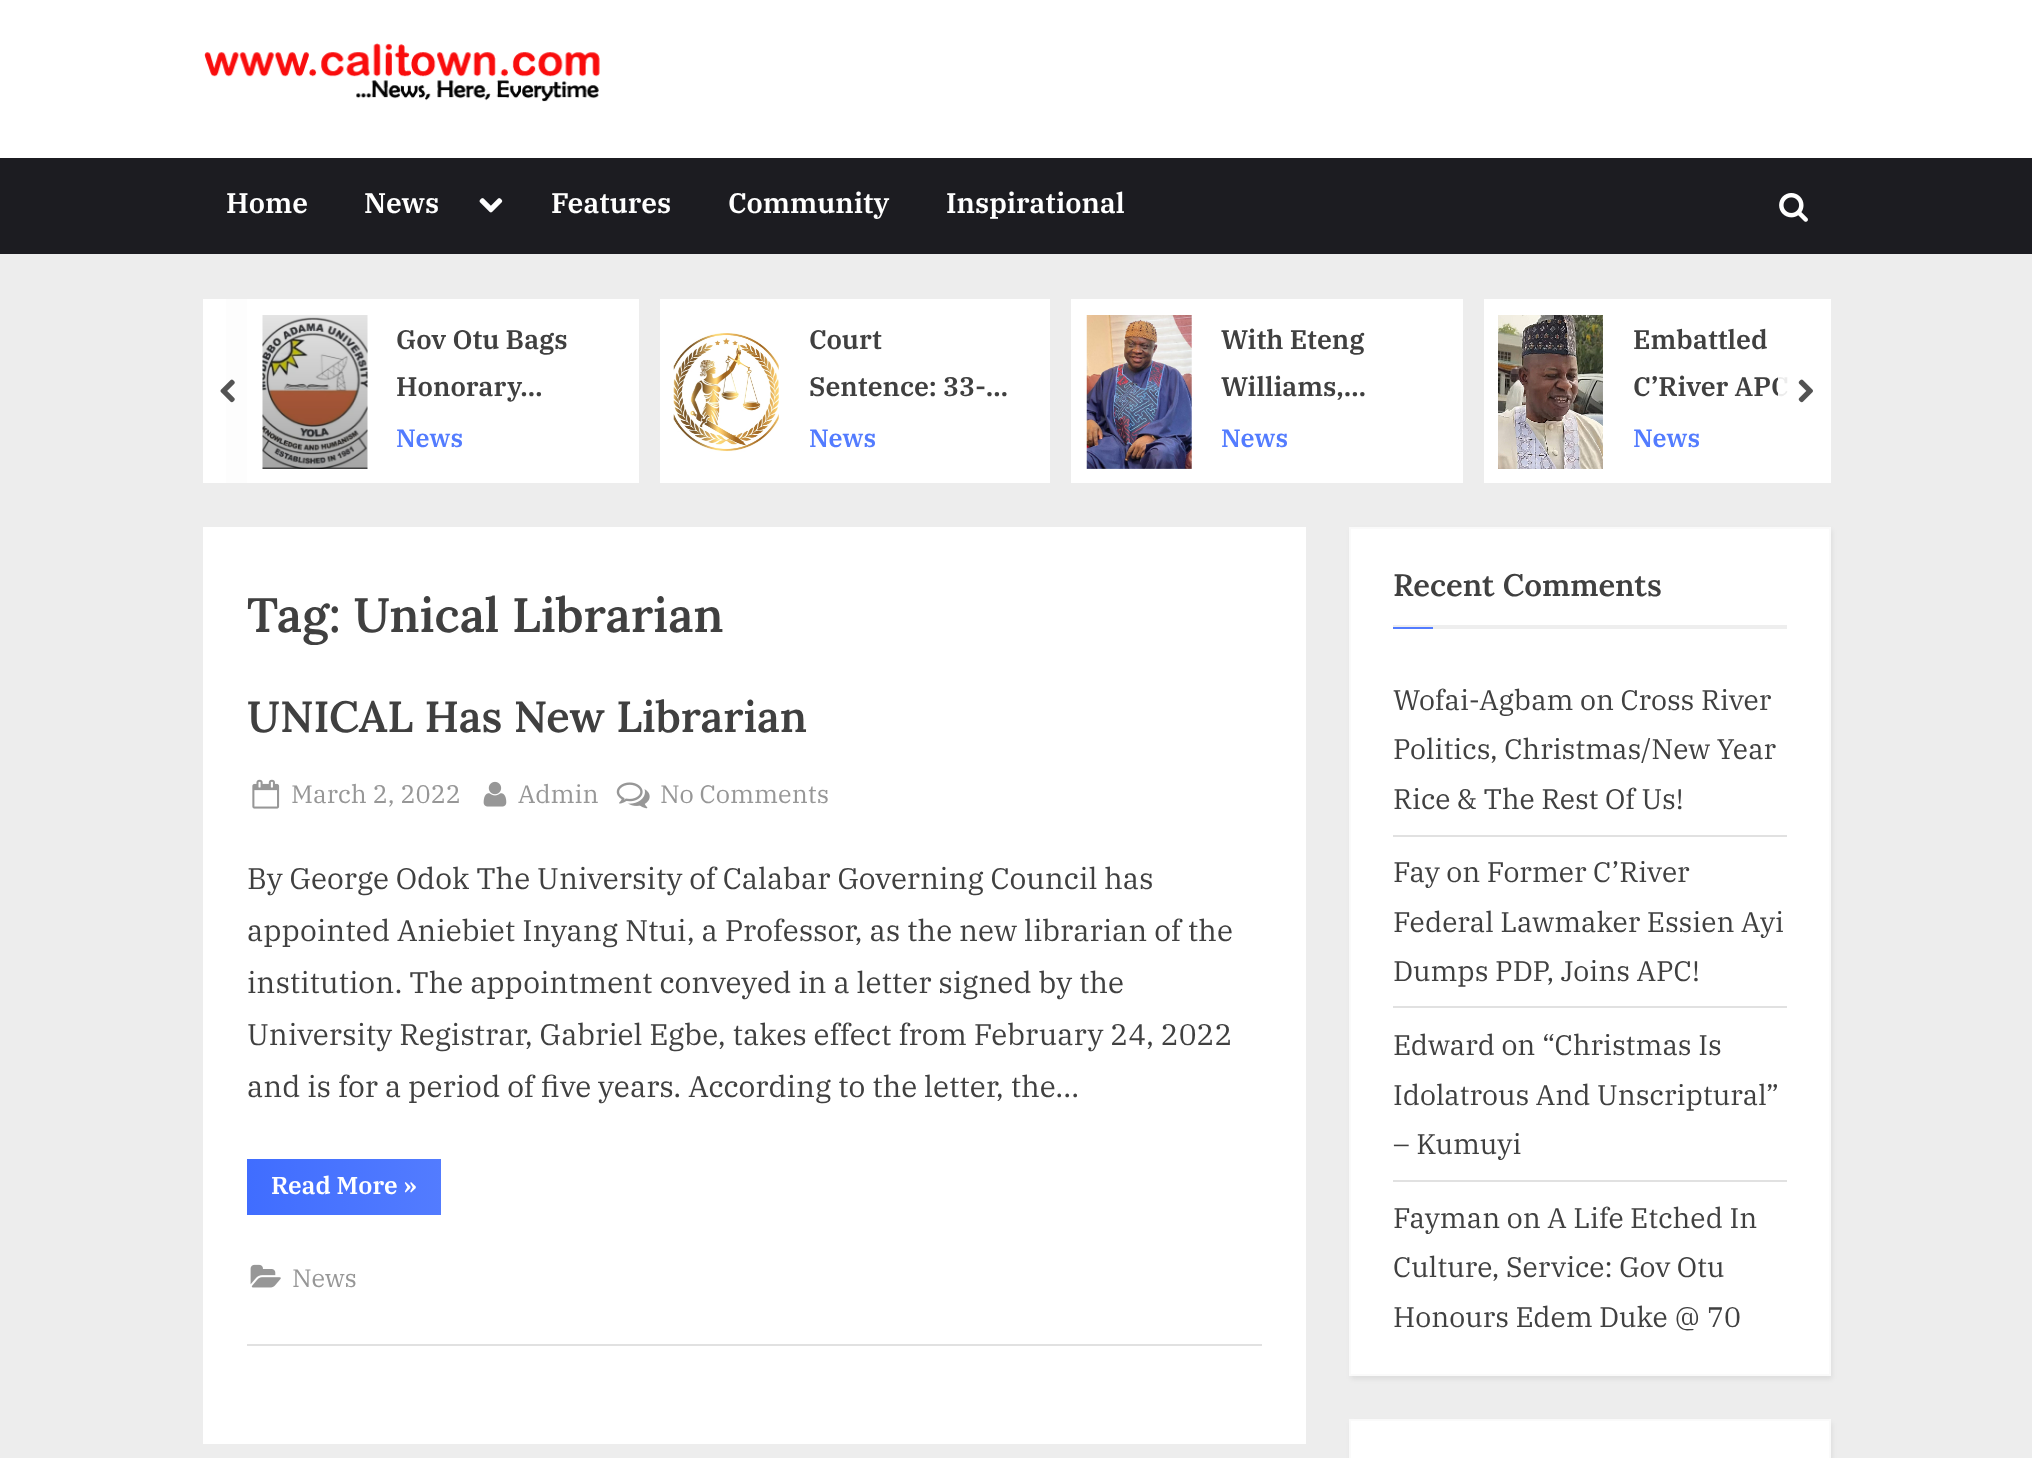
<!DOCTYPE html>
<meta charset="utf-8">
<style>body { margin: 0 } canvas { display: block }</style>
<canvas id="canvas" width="2032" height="1458"></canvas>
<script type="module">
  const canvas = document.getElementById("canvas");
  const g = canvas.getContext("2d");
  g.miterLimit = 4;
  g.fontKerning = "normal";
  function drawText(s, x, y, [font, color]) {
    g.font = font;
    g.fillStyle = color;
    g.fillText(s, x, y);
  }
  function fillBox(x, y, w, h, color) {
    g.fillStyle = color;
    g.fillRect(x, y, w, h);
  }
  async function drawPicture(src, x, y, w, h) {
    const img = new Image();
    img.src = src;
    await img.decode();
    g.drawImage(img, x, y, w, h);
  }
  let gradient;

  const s1 = ["600 28.25px IBM Plex Serif", "#FFFFFF"];
  const s2 = ["600 26.75px IBM Plex Serif", "#404040"];
  const s3 = ["600 25.25px IBM Plex Serif", "#537CFF"];
  const s4 = ["600 48.25px Lora", "#404040"];
  const s5 = ["600 43.5px Lora", "#404040"];
  const s6 = ["25.25px IBM Plex Serif", "#979797"];
  const s7 = ["29.75px IBM Plex Serif", "#404040"];
  const s8 = ["600 24.5px IBM Plex Serif", "#FFFFFF"];
  const s9 = ["600 31px Lora", "#404040"];
  const s10 = ["28.25px IBM Plex Serif", "#404040"];

  fillBox(0, 0, 2032, 1458, "#EDEDED");
  fillBox(226, 299, 21, 184, "#FDFDFD");
  fillBox(0, 0, 2032, 158, "#FFFFFF");
  await drawPicture("pic1.png", 204, 43, 396, 59);
  fillBox(0, 158, 2032, 96, "#1C1C21");
  drawText("Home", 226, 213, s1);
  drawText("News", 364, 213, s1);
  await drawPicture("pic2.png", 479, 198, 24, 15);
  drawText("Features", 551, 213, s1);
  drawText("Community", 728, 213, s1);
  drawText("Inspirational", 946, 213, s1);
  await drawPicture("pic3.png", 1779, 193, 29, 29);
  fillBox(203, 299, 23, 184, "#FFFFFF");
  fillBox(247, 299, 392, 184, "#FFFFFF");
  await drawPicture("pic4.png", 262, 315, 106, 154);
  drawText("Gov Otu Bags", 396, 349, s2);
  drawText("Honorary…", 396, 396, s2);
  drawText("News", 396, 447, s3);
  fillBox(660, 299, 390, 184, "#FFFFFF");
  await drawPicture("pic5.png", 673, 333, 106, 119);
  drawText("Court", 809, 349, s2);
  drawText("Sentence: 33-…", 809, 396, s2);
  drawText("News", 809, 447, s3);
  fillBox(1071, 299, 392, 184, "#FFFFFF");
  await drawPicture("pic6.png", 1086, 315, 106, 154);
  drawText("With Eteng", 1221, 349, s2);
  drawText("Williams,…", 1221, 396, s2);
  g.save();
  g.beginPath();
  g.rect(1222, 417, 203, 43);
  g.clip();
  drawText("News", 1221, 447, s3);
  g.restore();
  fillBox(1484, 299, 347, 184, "#FFFFFF");
  await drawPicture("pic7.png", 1498, 315, 105, 154);
  drawText("Embattled", 1633, 349, s2);
  drawText("C’River APC", 1633, 396, s2);
  drawText("News", 1633, 447, s3);
  await drawPicture("pic8.png", 220, 379, 15, 24);
  fillBox(1778, 377, 10, 20, "rgba(255, 255, 255, 0.9)");
  await drawPicture("pic9.png", 1798, 379, 15, 24);
  fillBox(203, 527, 1103, 917, "#FFFFFF");
  drawText("Tag: Unical Librarian", 247, 632, s4);
  fillBox(247, 1344, 1015, 2, "#E1E1E1");
  drawText("UNICAL Has New Librarian", 247, 732, s5);
  await drawPicture("pic10.png", 252, 779, 28, 30);
  drawText("March 2, 2022", 291, 803, s6);
  await drawPicture("pic11.png", 483, 781, 24, 26);
  drawText("Admin", 518, 803, s6);
  await drawPicture("pic12.png", 616, 782, 34, 27);
  drawText("No Comments", 660, 803, s6);
  drawText("By George Odok The University of Calabar Governing Council has", 247, 889, s7);
  drawText("appointed Aniebiet Inyang Ntui, a Professor, as the new librarian of the", 247, 941, s7);
  drawText("institution. The appointment conveyed in a letter signed by the", 247, 993, s7);
  drawText("University Registrar, Gabriel Egbe, takes effect from February 24, 2022", 247, 1045, s7);
  drawText("and is for a period of five years. According to the letter, the…", 247, 1097, s7);
  gradient = g.createLinearGradient(247, 1187, 635, 1187);
  gradient.addColorStop(0, "#406DFF");
  gradient.addColorStop(0.51, "#537CFF");
  gradient.addColorStop(1, "#406DFF");
  g.fillStyle = gradient;
  g.fillRect(247, 1159, 194, 56);
  drawText("Read More »", 271, 1194, s8);
  await drawPicture("pic13.png", 250, 1264, 31, 24);
  drawText("News", 292, 1287, s6);
  g.fillStyle = "rgba(0, 0, 0, 0.07)";
  g.filter = "blur(2.5px)";
  g.beginPath();
  g.rect(1351, 530, 481, 849);
  g.fill();
  g.filter = "none";
  g.fillStyle = "#FFFFFF";
  g.beginPath();
  g.rect(1350, 528, 480, 847);
  g.fill();
  g.strokeStyle = "#FAFAFA";
  g.lineWidth = 2;
  g.stroke();
  fillBox(1393, 625, 394, 4, "#EEEEEE");
  drawText("Recent Comments", 1393, 596, s9);
  fillBox(1393, 627, 40, 2, "#537CFF");
  fillBox(1393, 835, 394, 2, "#E1E1E1");
  drawText("Wofai-Agbam on Cross River", 1393, 710, s10);
  drawText("Politics, Christmas/New Year", 1393, 759, s10);
  drawText("Rice & The Rest Of Us!", 1393, 809, s10);
  fillBox(1393, 1006, 394, 2, "#E1E1E1");
  drawText("Fay on Former C’River", 1393, 882, s10);
  drawText("Federal Lawmaker Essien Ayi", 1393, 932, s10);
  drawText("Dumps PDP, Joins APC!", 1393, 981, s10);
  fillBox(1393, 1180, 394, 2, "#E1E1E1");
  drawText("Edward on “Christmas Is", 1393, 1055, s10);
  drawText("Idolatrous And Unscriptural”", 1393, 1105, s10);
  drawText("– Kumuyi", 1393, 1154, s10);
  drawText("Fayman on A Life Etched In", 1393, 1228, s10);
  drawText("Culture, Service: Gov Otu", 1393, 1277, s10);
  drawText("Honours Edem Duke @ 70", 1393, 1327, s10);
  g.fillStyle = "rgba(0, 0, 0, 0.07)";
  g.filter = "blur(2.5px)";
  g.beginPath();
  g.rect(1351, 1423, 481, 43);
  g.fill();
  g.filter = "none";
  g.fillStyle = "#FFFFFF";
  g.beginPath();
  g.rect(1350, 1420, 480, 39);
  g.fill();
  g.stroke();
</script>
